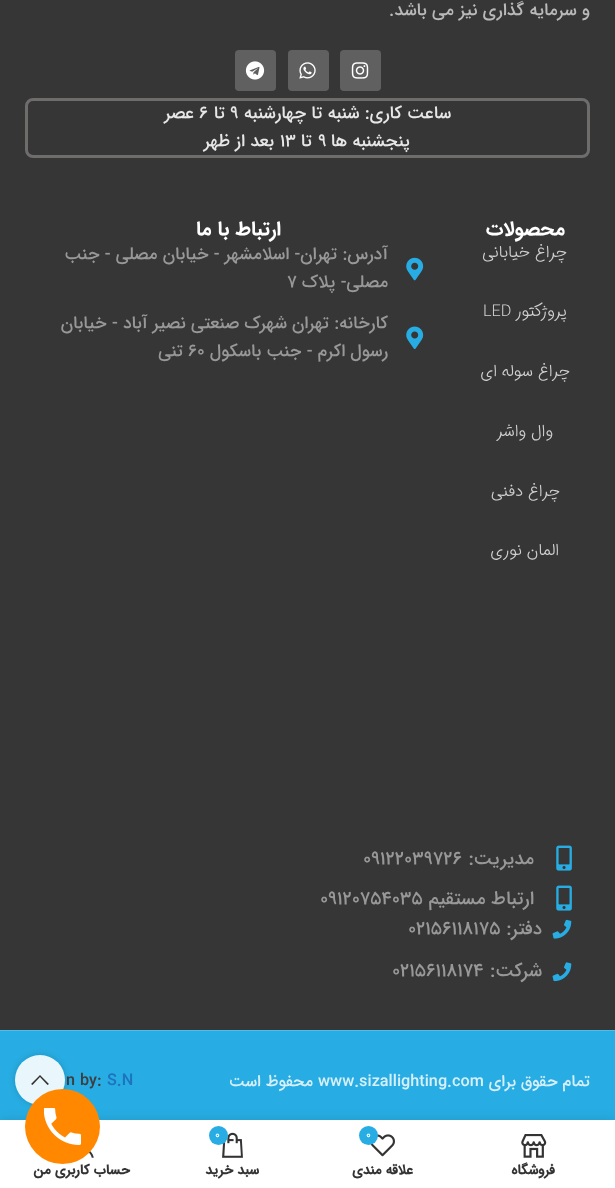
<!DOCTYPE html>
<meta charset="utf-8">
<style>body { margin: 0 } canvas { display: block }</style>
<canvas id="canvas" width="615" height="1188"></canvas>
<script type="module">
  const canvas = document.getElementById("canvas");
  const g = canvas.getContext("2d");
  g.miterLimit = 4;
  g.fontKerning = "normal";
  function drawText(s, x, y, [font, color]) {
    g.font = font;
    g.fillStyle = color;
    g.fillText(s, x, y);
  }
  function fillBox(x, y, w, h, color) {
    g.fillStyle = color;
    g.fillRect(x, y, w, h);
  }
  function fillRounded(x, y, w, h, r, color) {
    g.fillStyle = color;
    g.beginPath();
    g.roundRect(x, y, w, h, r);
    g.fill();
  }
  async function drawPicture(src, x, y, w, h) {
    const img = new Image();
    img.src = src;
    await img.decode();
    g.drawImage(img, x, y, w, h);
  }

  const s1 = ["500 17.5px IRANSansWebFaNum", "#B9B9B9"];
  const s2 = ["500 17.5px IRANSansWebFaNum", "#E7E7E7"];
  const s3 = ["bold 20px IRANSansWebFaNum", "#FFFFFF"];
  const s4 = ["300 16.25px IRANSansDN", "#D1D1D1"];
  const s5 = ["500 17.5px IRANSansWebFaNum", "#989898"];
  const s6 = ["500 18.75px IRANSansWebFaNum", "#989898"];
  const s7 = ["500 16.25px IRANSansWebFaNum", "#D6EFFA"];
  const s8 = ["500 16.25px IRANSansWebFaNum", "#1E73BE"];
  const s9 = ["500 16.25px IRANSansWebFaNum", "#3F3D3D"];
  const s10 = ["bold 13.75px 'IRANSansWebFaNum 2'", "#333333"];
  const s11 = ["500 11px IRANSansWebFaNum", "#FFFFFF"];

  fillBox(0, 0, 615, 1188, "#363636");
  g.direction = "rtl";
  drawText("و سرمایه گذاری نیز می باشد.", 590, 15, s1);
  fillRounded(340, 50, 41, 41, 4, "#606060");
  await drawPicture("pic1.png", 351, 62, 18, 17);
  fillRounded(288, 50, 41, 41, 4, "#606060");
  await drawPicture("pic2.png", 299, 62, 17, 17);
  fillRounded(235, 50, 41, 41, 4, "#606060");
  await drawPicture("pic3.png", 245, 61, 20, 19);
  g.beginPath();
  g.roundRect(26.5, 99.5, 562, 57, 6.5);
  g.strokeStyle = "#6F6C6C";
  g.lineWidth = 3;
  g.stroke();
  drawText("ساعت کاری: شنبه تا چهارشنبه", 451, 118, s2);
  g.direction = "ltr";
  drawText("9", 230, 118, s2);
  g.direction = "rtl";
  drawText("تا", 225, 118, s2);
  g.direction = "ltr";
  drawText("6", 199, 118, s2);
  g.direction = "rtl";
  drawText("عصر", 194, 118, s2);
  drawText("پنجشنبه ها", 410, 146, s2);
  g.direction = "ltr";
  drawText("9", 318, 146, s2);
  g.direction = "rtl";
  drawText("تا", 312, 146, s2);
  g.direction = "ltr";
  drawText("13", 280, 146, s2);
  g.direction = "rtl";
  drawText("بعد از ظهر", 274, 146, s2);
  drawText("محصولات", 565, 235, s3);
  drawText("چراغ خیابانی", 567, 257, s4);
  drawText("پروژکتور", 567, 316, s4);
  g.direction = "ltr";
  drawText("LED", 483, 316, s4);
  g.direction = "rtl";
  drawText("چراغ سوله ای", 570, 376, s4);
  drawText("وال واشر", 553, 436, s4);
  drawText("چراغ دفنی", 560, 496, s4);
  drawText("المان نوری", 559, 555, s4);
  drawText("ارتباط با ما", 281, 235, s3);
  await drawPicture("pic4.png", 406, 257, 18, 24);
  drawText("آدرس: تهران- اسلامشهر - خیابان مصلی - جنب", 388, 259, s5);
  drawText("مصلی- پلاک", 388, 287, s5);
  g.direction = "ltr";
  drawText("7", 287, 287, s5);
  await drawPicture("pic5.png", 406, 326, 18, 23);
  g.direction = "rtl";
  drawText("کارخانه: تهران شهرک صنعتی نصیر آباد - خیابان", 388, 328, s5);
  drawText("رسول اکرم - جنب باسکول", 388, 356, s5);
  g.direction = "ltr";
  drawText("۶۰", 188, 356, s5);
  g.direction = "rtl";
  drawText("تنی", 183, 356, s5);
  await drawPicture("pic6.png", 556, 845, 16, 26);
  drawText("مدیریت:", 534, 864, s6);
  g.direction = "ltr";
  drawText("09122039726", 363, 864, s6);
  await drawPicture("pic6.png", 556, 885, 16, 26);
  g.direction = "rtl";
  drawText("ارتباط مستقیم", 534, 904, s6);
  g.direction = "ltr";
  drawText("09120754035", 320, 904, s6);
  await drawPicture("pic7.png", 552, 919, 20, 20);
  g.direction = "rtl";
  drawText("دفتر:", 542, 934, s6);
  g.direction = "ltr";
  drawText("02156118175", 408, 934, s6);
  await drawPicture("pic8.png", 552, 962, 20, 20);
  g.direction = "rtl";
  drawText("شرکت:", 542, 976, s6);
  g.direction = "ltr";
  drawText("02156118174", 392, 976, s6);
  fillBox(0, 1031, 615, 89, "#27ADE3");
  fillBox(0, 1030, 615, 1, "#50BDE8");
  g.direction = "rtl";
  drawText("تمام حقوق برای", 590, 1086, s7);
  g.direction = "ltr";
  drawText("www.sizallighting.com", 318, 1086, s7);
  g.direction = "rtl";
  drawText("محفوظ است", 313, 1086, s7);
  g.direction = "ltr";
  drawText("S.N", 107, 1085, s8);
  drawText("n by:", 66, 1085, s9);
  g.save();
  g.beginPath();
  g.moveTo(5, 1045);
  g.lineTo(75, 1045);
  g.lineTo(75, 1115);
  g.lineTo(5, 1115);
  g.closePath();
  g.moveTo(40, 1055);
  g.bezierCurveTo(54, 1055, 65, 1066, 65, 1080);
  g.bezierCurveTo(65, 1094, 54, 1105, 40, 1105);
  g.bezierCurveTo(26, 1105, 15, 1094, 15, 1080);
  g.bezierCurveTo(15, 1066, 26, 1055, 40, 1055);
  g.closePath();
  g.clip("evenodd");
  g.fillStyle = "rgba(0, 0, 0, 0.17)";
  g.filter = "blur(3px)";
  g.beginPath();
  g.roundRect(15, 1055, 50, 50, 25);
  g.fill();
  g.filter = "none";
  g.restore();
  g.fillStyle = "rgba(255, 255, 255, 0.9)";
  g.beginPath();
  g.arc(40, 1080, 25, 0, Math.PI * 2);
  g.fill();
  g.fillStyle = "#333333";
  g.beginPath();
  g.moveTo(40, 1075);
  g.lineTo(49, 1084);
  g.lineTo(47.5, 1085);
  g.lineTo(40, 1077);
  g.lineTo(32.5, 1085);
  g.lineTo(31, 1084);
  g.closePath();
  g.fill();
  g.fillStyle = "rgba(0, 0, 0, 0.12)";
  g.filter = "blur(5.5px)";
  g.beginPath();
  g.rect(0, 1120, 615, 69);
  g.fill();
  g.filter = "none";
  fillBox(0, 1120, 615, 68, "#FFFFFF");
  await drawPicture("pic13.png", 89, 1151, 5, 7);
  g.fillStyle = "#FF8800";
  g.beginPath();
  g.arc(62.5, 1126.5, 37.5, 0, Math.PI * 2);
  g.fill();
  await drawPicture("pic9.png", 44, 1108, 37, 37);
  await drawPicture("pic10.png", 521, 1134, 26, 24);
  g.direction = "rtl";
  drawText("فروشگاه", 555, 1174, s10);
  await drawPicture("pic11.png", 370, 1134, 25, 23);
  g.fillStyle = "#27ADE3";
  g.beginPath();
  g.arc(368.5, 1135.5, 9.5, 0, Math.PI * 2);
  g.fill();
  g.direction = "ltr";
  drawText("0", 366, 1138, s11);
  g.direction = "rtl";
  drawText("علاقه مندی", 413, 1174, s10);
  await drawPicture("pic12.png", 222, 1132, 21, 26);
  g.fillStyle = "#27ADE3";
  g.beginPath();
  g.arc(218.5, 1135.5, 9.5, 0, Math.PI * 2);
  g.fill();
  g.direction = "ltr";
  drawText("0", 215, 1138, s11);
  g.direction = "rtl";
  drawText("سبد خرید", 259, 1174, s10);
  drawText("حساب کاربری من", 130, 1174, s10);
</script>
